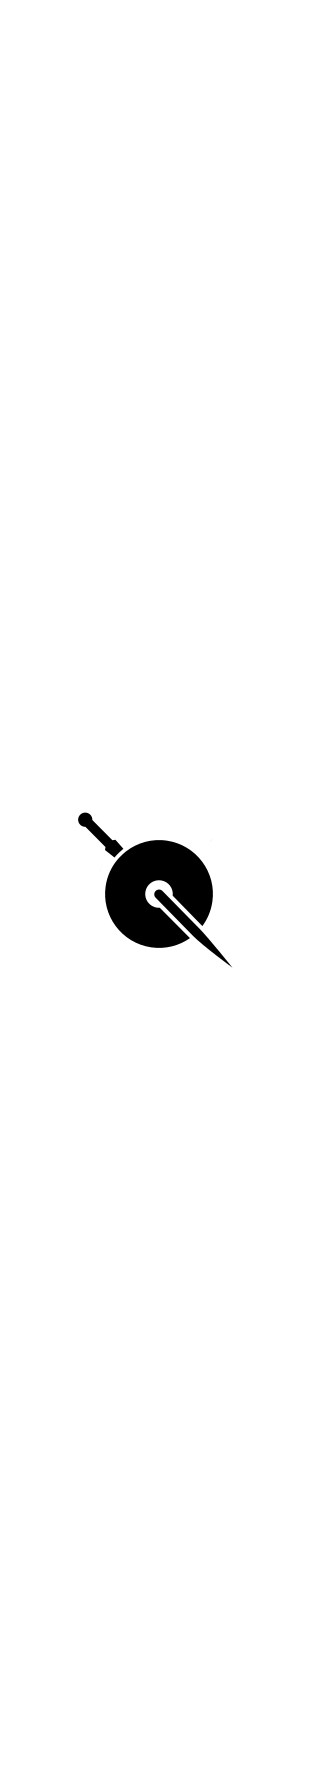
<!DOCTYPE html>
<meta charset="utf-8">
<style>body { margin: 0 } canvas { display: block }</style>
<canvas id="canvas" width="318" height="1787"></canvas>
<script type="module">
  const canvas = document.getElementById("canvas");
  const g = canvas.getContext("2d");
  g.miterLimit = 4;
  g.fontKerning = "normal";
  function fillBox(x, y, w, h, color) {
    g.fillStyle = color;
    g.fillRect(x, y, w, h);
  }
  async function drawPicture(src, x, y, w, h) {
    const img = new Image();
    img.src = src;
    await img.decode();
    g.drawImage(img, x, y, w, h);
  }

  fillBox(0, 0, 318, 1787, "#FFFFFF");
  await drawPicture("pic1.png", 78, 812, 155, 156);
</script>
